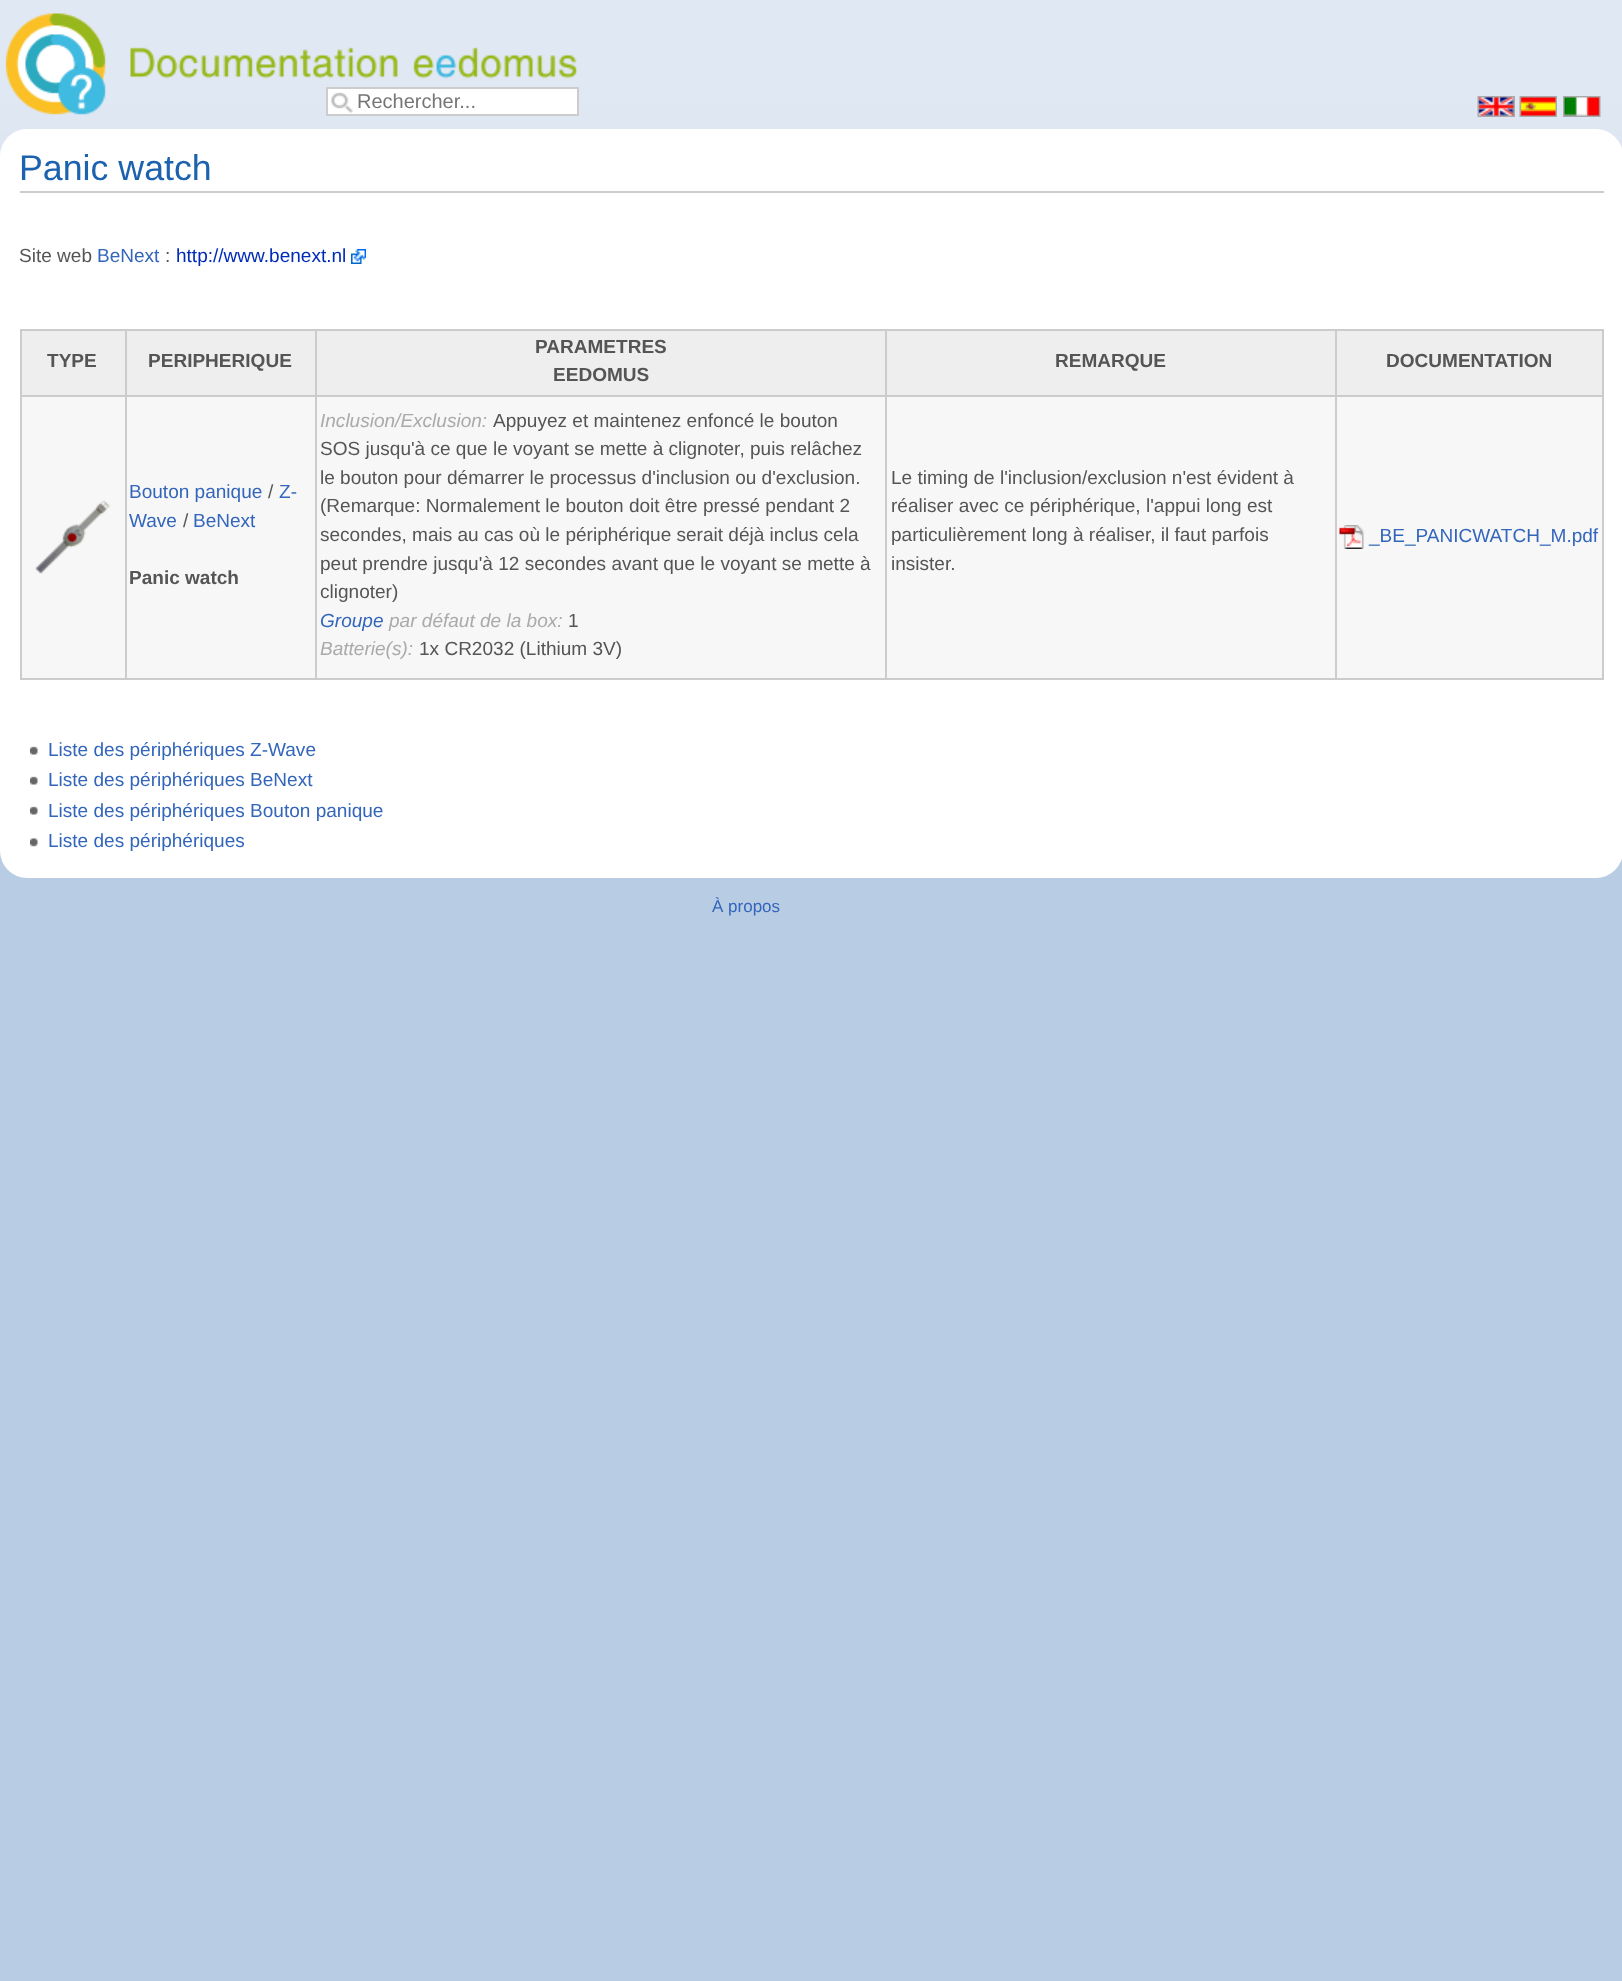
<!DOCTYPE html>
<meta charset="utf-8">
<style>body { margin: 0 } canvas { display: block }</style>
<canvas id="canvas" width="1622" height="1981"></canvas>
<script type="module">
  const canvas = document.getElementById("canvas");
  const g = canvas.getContext("2d");
  g.miterLimit = 4;
  g.fontKerning = "normal";
  function drawText(s, x, y, [font, color]) {
    g.font = font;
    g.fillStyle = color;
    g.fillText(s, x, y);
  }
  function fillBox(x, y, w, h, color) {
    g.fillStyle = color;
    g.fillRect(x, y, w, h);
  }
  function fillRounded(x, y, w, h, r, color) {
    g.fillStyle = color;
    g.beginPath();
    g.roundRect(x, y, w, h, r);
    g.fill();
  }
  async function drawPicture(src, x, y, w, h) {
    const img = new Image();
    img.src = src;
    await img.decode();
    g.drawImage(img, x, y, w, h);
  }

  const s1 = ["20px Liberation Sans", "#757575"];
  const s2 = ["35.75px Liberation Sans", "#1C62AF"];
  const s3 = ["19.05px Liberation Sans", "#555555"];
  const s4 = ["19.05px Liberation Sans", "#3366BB"];
  const s5 = ["19.05px Liberation Sans", "#002BB8"];
  const s6 = ["bold 19.05px Liberation Sans", "#555555"];
  const s7 = ["italic 19.05px Liberation Sans", "#AAAAAA"];
  const s8 = ["italic 19.05px Liberation Sans", "#3366BB"];
  const s9 = ["17px Liberation Sans", "#3366BB"];

  fillBox(0, 0, 1622, 1981, "#B8CCE4");
  await drawPicture("pic1.png", 0, 0, 1622, 156);
  await drawPicture("pic2.png", 5, 13, 573, 102);
  fillBox(328, 89, 249, 25, "#FFFFFF");
  await drawPicture("pic3.png", 331, 92, 22, 21);
  g.strokeStyle = "#CCCCCC";
  g.lineWidth = 2;
  g.strokeRect(327, 88, 251, 27);
  drawText("Rechercher...", 357, 108, s1);
  await drawPicture("pic4.png", 1477, 96, 38, 21);
  await drawPicture("pic5.png", 1519, 96, 38, 21);
  await drawPicture("pic6.png", 1563, 96, 38, 21);
  fillRounded(0, 129, 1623, 749, 27, "#FFFFFF");
  fillBox(20, 191, 1584, 2, "#CCCCCC");
  drawText("Panic watch", 19, 180, s2);
  drawText("Site web", 19, 262, s3);
  drawText("BeNext", 97, 262, s4);
  drawText(":", 165, 262, s3);
  drawText("http://www.benext.nl", 176, 262, s5);
  await drawPicture("pic7.png", 351, 249, 15, 15);
  fillBox(22, 397, 1580, 281, "#F7F7F7");
  fillBox(20, 329, 1584, 2, "#CCCCCC");
  fillBox(1602, 329, 2, 351, "#CCCCCC");
  fillBox(20, 678, 1584, 2, "#CCCCCC");
  fillBox(20, 329, 2, 351, "#CCCCCC");
  fillBox(22, 331, 103, 64, "#EEEEEE");
  drawText("TYPE", 47, 367, s6);
  fillBox(127, 331, 188, 64, "#EEEEEE");
  fillBox(1335, 395, 269, 2, "#CCCCCC");
  fillBox(1335, 395, 2, 285, "#CCCCCC");
  fillBox(885, 395, 452, 2, "#CCCCCC");
  fillBox(885, 395, 2, 285, "#CCCCCC");
  fillBox(315, 395, 572, 2, "#CCCCCC");
  fillBox(315, 395, 2, 285, "#CCCCCC");
  fillBox(125, 395, 192, 2, "#CCCCCC");
  fillBox(125, 395, 2, 285, "#CCCCCC");
  fillBox(20, 395, 106, 2, "#CCCCCC");
  fillBox(125, 329, 2, 67, "#CCCCCC");
  drawText("PERIPHERIQUE", 148, 367, s6);
  fillBox(317, 331, 568, 64, "#EEEEEE");
  fillBox(315, 329, 2, 67, "#CCCCCC");
  drawText("PARAMETRES", 535, 353, s6);
  drawText("EEDOMUS", 553, 381, s6);
  fillBox(887, 331, 448, 64, "#EEEEEE");
  fillBox(885, 329, 2, 67, "#CCCCCC");
  drawText("REMARQUE", 1055, 367, s6);
  fillBox(1337, 331, 265, 64, "#EEEEEE");
  fillBox(1335, 329, 2, 67, "#CCCCCC");
  drawText("DOCUMENTATION", 1386, 367, s6);
  await drawPicture("pic8.png", 35, 500, 75, 74);
  drawText("Bouton panique", 129, 498, s4);
  drawText("/", 268, 498, s3);
  drawText("Z-", 279, 498, s4);
  drawText("Wave", 129, 527, s4);
  drawText("/", 183, 527, s3);
  drawText("BeNext", 193, 527, s4);
  drawText("Panic watch", 129, 584, s6);
  drawText("Inclusion/Exclusion:", 320, 427, s7);
  drawText("Appuyez et maintenez enfoncé le bouton", 493, 427, s3);
  drawText("SOS jusqu'à ce que le voyant se mette à clignoter, puis relâchez", 320, 455, s3);
  drawText("le bouton pour démarrer le processus d'inclusion ou d'exclusion.", 320, 484, s3);
  drawText("(Remarque: Normalement le bouton doit être pressé pendant 2", 320, 512, s3);
  drawText("secondes, mais au cas où le périphérique serait déjà inclus cela", 320, 541, s3);
  drawText("peut prendre jusqu'à 12 secondes avant que le voyant se mette à", 320, 570, s3);
  drawText("clignoter)", 320, 598, s3);
  drawText("Groupe", 320, 627, s8);
  drawText("par défaut de la box:", 389, 627, s7);
  drawText("1", 568, 627, s3);
  drawText("Batterie(s):", 320, 655, s7);
  drawText("1x CR2032 (Lithium 3V)", 419, 655, s3);
  drawText("Le timing de l'inclusion/exclusion n'est évident à", 891, 484, s3);
  drawText("réaliser avec ce périphérique, l'appui long est", 891, 512, s3);
  drawText("particulièrement long à réaliser, il faut parfois", 891, 541, s3);
  drawText("insister.", 891, 570, s3);
  await drawPicture("pic9.png", 1339, 525, 25, 24);
  drawText("_BE_PANICWATCH_M.pdf", 1369, 542, s4);
  await drawPicture("pic10.png", 30, 746, 8, 9);
  drawText("Liste des périphériques Z-Wave", 48, 756, s4);
  await drawPicture("pic10.png", 30, 776, 8, 9);
  drawText("Liste des périphériques BeNext", 48, 786, s4);
  await drawPicture("pic10.png", 30, 806, 8, 9);
  drawText("Liste des périphériques Bouton panique", 48, 817, s4);
  await drawPicture("pic11.png", 30, 838, 8, 9);
  drawText("Liste des périphériques", 48, 847, s4);
  drawText("À propos", 712, 912, s9);
</script>
